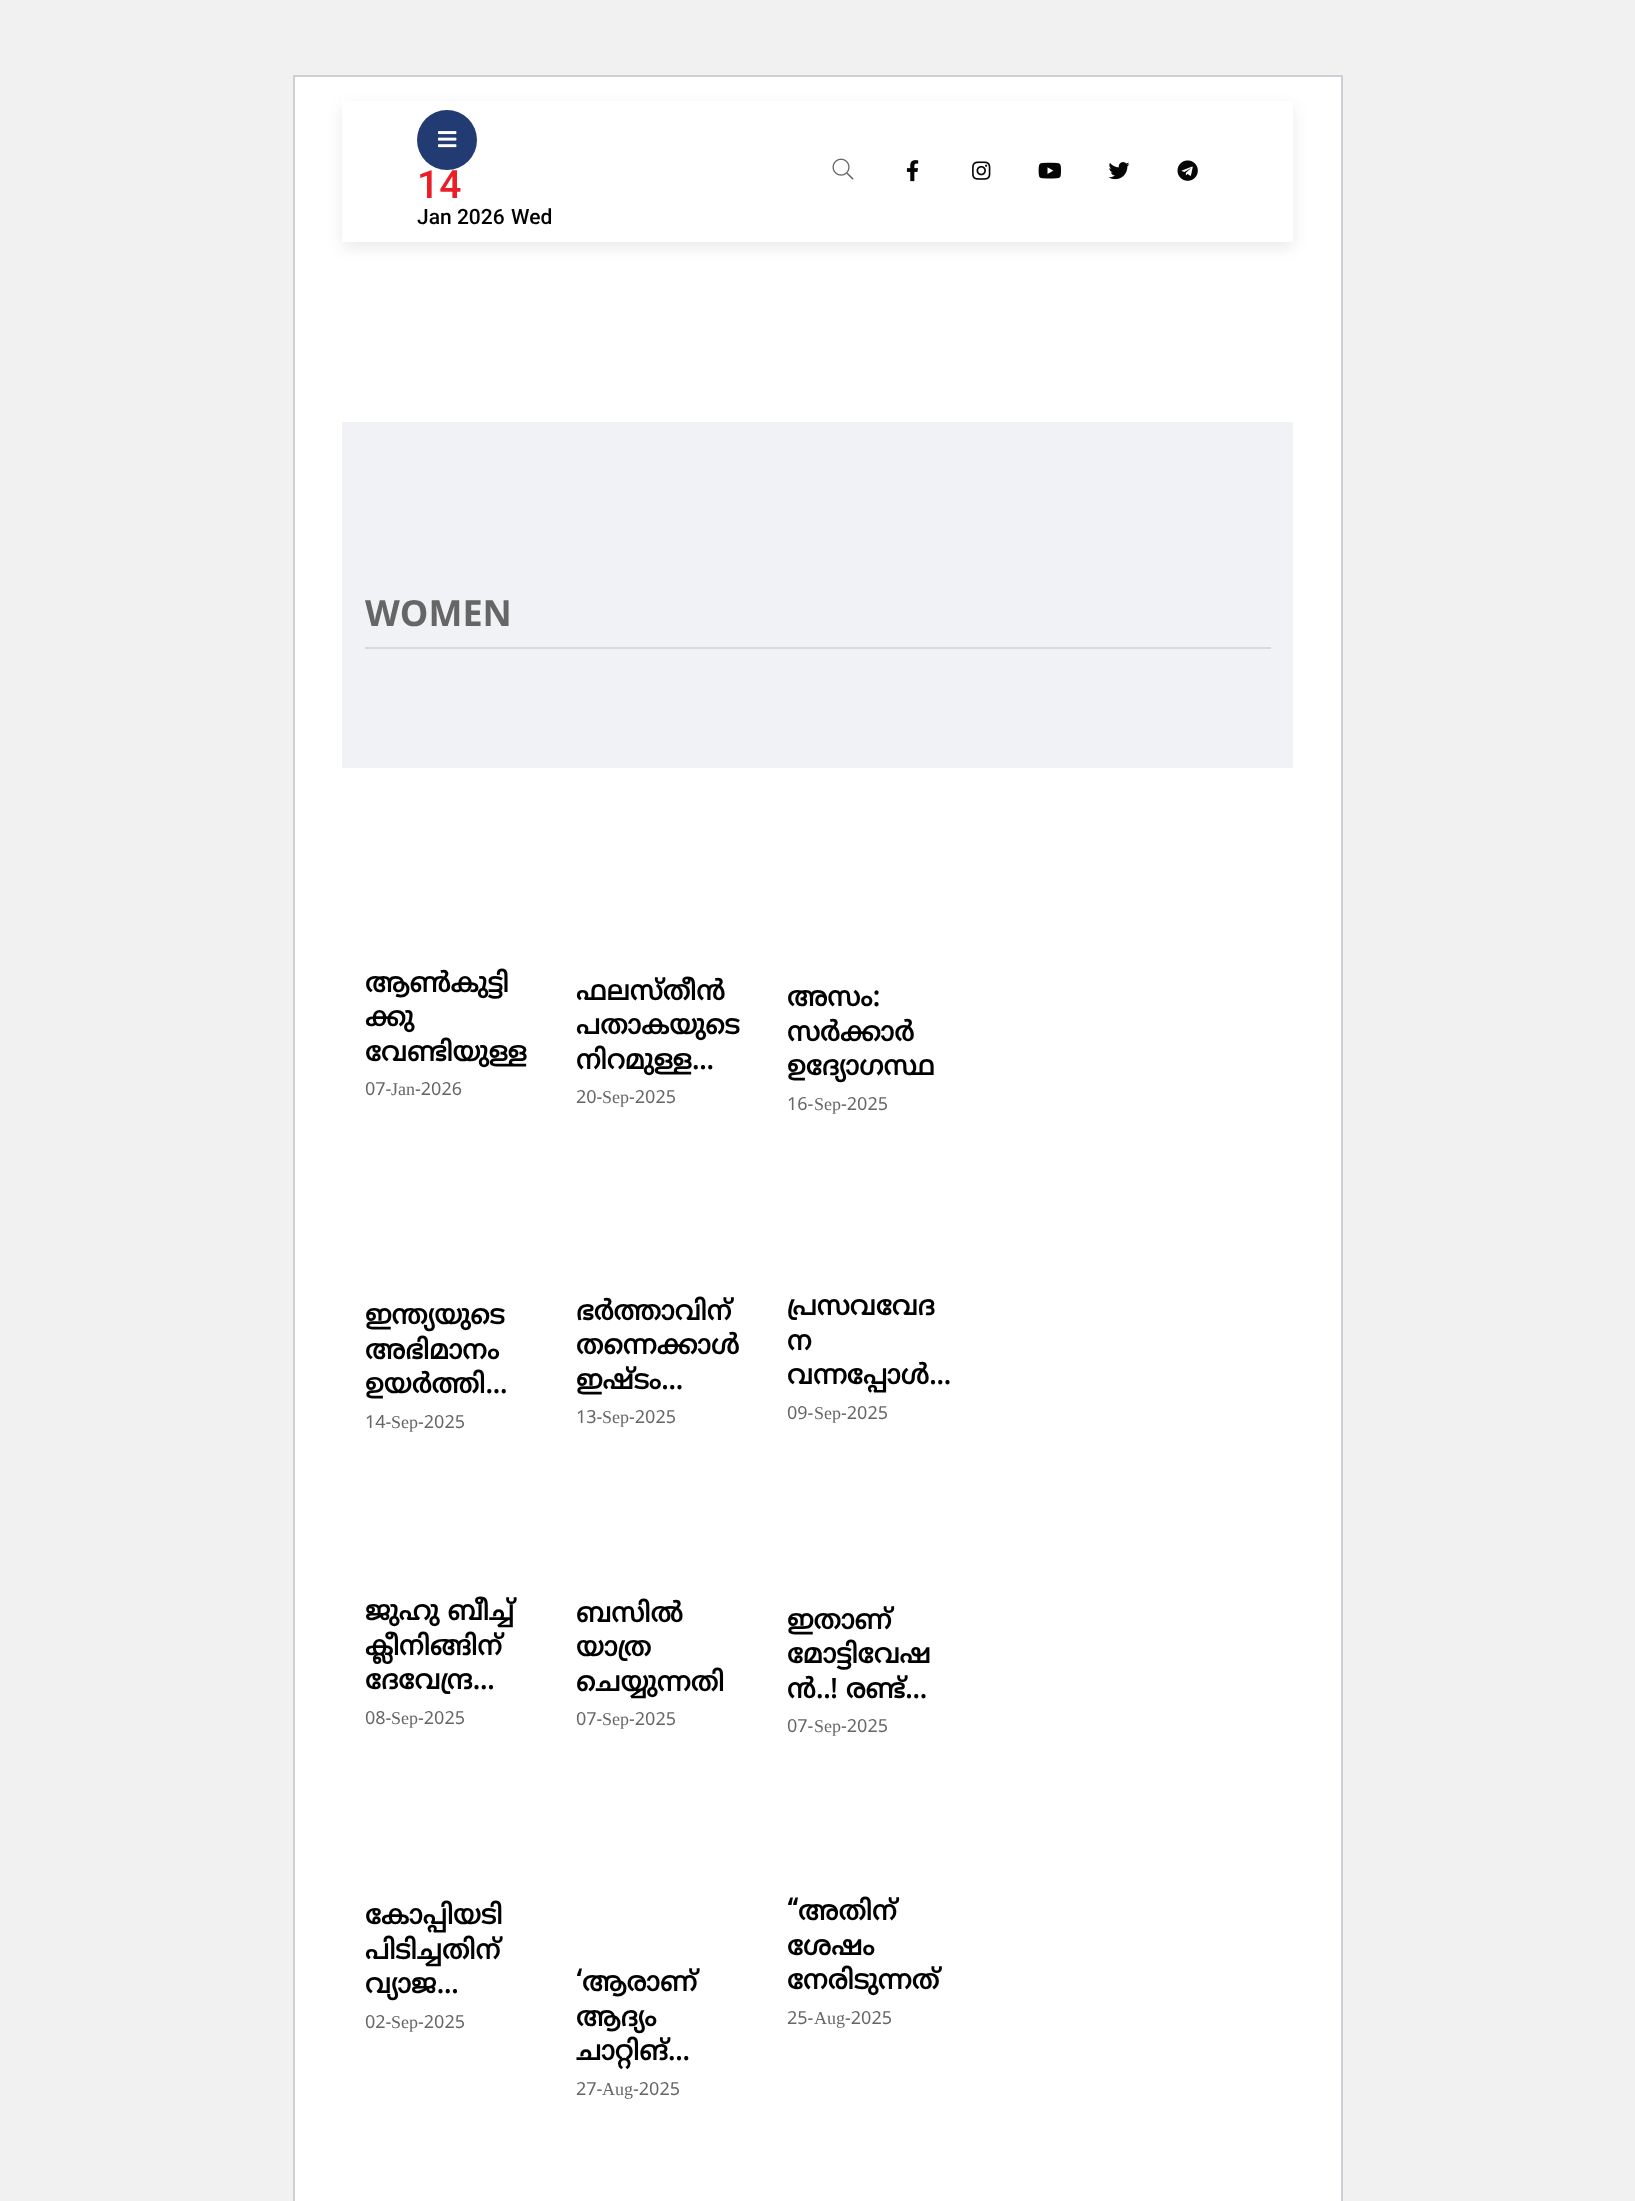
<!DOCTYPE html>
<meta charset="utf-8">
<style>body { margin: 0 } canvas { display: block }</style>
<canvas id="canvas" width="1635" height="2201"></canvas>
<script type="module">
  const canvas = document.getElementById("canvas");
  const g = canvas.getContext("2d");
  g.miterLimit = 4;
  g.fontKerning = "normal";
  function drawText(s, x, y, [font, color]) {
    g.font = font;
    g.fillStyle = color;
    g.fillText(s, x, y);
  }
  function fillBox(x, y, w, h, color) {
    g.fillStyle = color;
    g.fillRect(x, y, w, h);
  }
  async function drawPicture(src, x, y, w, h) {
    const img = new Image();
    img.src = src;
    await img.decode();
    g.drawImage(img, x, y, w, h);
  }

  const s1 = ["500 39px Roboto", "#EB1D26"];
  const s2 = ["500 21px Roboto", "#000000"];
  const s3 = ["bold 36px Open Sans", "#666666"];
  const s4 = ["bold 27px Noto Sans Malayalam", "#000000"];
  const s5 = ["18px Noto Sans Malayalam", "#666666"];
  const s6 = ["18px Liberation Serif", "#666666"];

  fillBox(0, 0, 1635, 2201, "#F1F1F1");
  g.fillStyle = "#FFFFFF";
  g.beginPath();
  g.rect(294, 76, 1048, 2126);
  g.fill();
  g.strokeStyle = "#CCD0D4";
  g.lineWidth = 2;
  g.stroke();
  g.fillStyle = "rgba(37, 47, 63, 0.1)";
  g.filter = "blur(7.5px)";
  g.beginPath();
  g.rect(342, 107, 951, 141);
  g.fill();
  g.filter = "none";
  fillBox(342, 101, 951, 141, "#FFFFFF");
  g.fillStyle = "#223B73";
  g.beginPath();
  g.arc(447, 140, 30, 0, Math.PI * 2);
  g.fill();
  await drawPicture("pic1.png", 438, 131, 19, 17);
  drawText("14", 417, 198, s1);
  drawText("Jan 2026", 417, 224, s2);
  drawText("Wed", 511, 224, s2);
  await drawPicture("pic2.png", 832, 158, 22, 22);
  await drawPicture("pic3.png", 906, 160, 13, 22);
  await drawPicture("pic4.png", 972, 161, 19, 19);
  await drawPicture("pic5.png", 1038, 162, 23, 17);
  await drawPicture("pic6.png", 1108, 162, 22, 18);
  await drawPicture("pic7.png", 1177, 160, 21, 21);
  fillBox(342, 422, 951, 346, "#F0F2F5");
  fillBox(365, 647, 906, 2, "#DADADA");
  drawText("WOMEN", 365, 626, s3);
  drawText("ആണ്‍കുട്ടി", 365, 992, s4);
  g.save();
  g.beginPath();
  g.rect(365, 968, 166, 103);
  g.clip();
  drawText("ക്കു", 365, 1026, s4);
  g.restore();
  drawText("വേണ്ടിയുള്ള", 365, 1061, s4);
  drawText("07-", 365, 1095, s5);
  drawText("Jan", 391, 1095, s6);
  drawText("-2026", 415, 1095, s5);
  drawText("ഫലസ്തീൻ", 576, 1000, s4);
  drawText("പതാകയുടെ", 576, 1034, s4);
  g.save();
  g.beginPath();
  g.rect(576, 977, 167, 103);
  g.clip();
  drawText("നിറമുള്ള…", 576, 1069, s4);
  g.restore();
  drawText("20-", 576, 1103, s5);
  drawText("Sep", 602, 1103, s6);
  drawText("-2025", 629, 1103, s5);
  drawText("അസം:", 787, 1006, s4);
  drawText("സര്‍ക്കാര്‍", 787, 1041, s4);
  drawText("ഉദ്യോഗസ്ഥ", 787, 1075, s4);
  drawText("16-", 787, 1110, s5);
  drawText("Sep", 814, 1110, s6);
  drawText("-2025", 841, 1110, s5);
  drawText("ഇന്ത്യയുടെ", 365, 1324, s4);
  drawText("അഭിമാനം", 365, 1359, s4);
  drawText("ഉയർത്തി…", 365, 1393, s4);
  drawText("14-", 365, 1428, s5);
  drawText("Sep", 391, 1428, s6);
  drawText("-2025", 418, 1428, s5);
  drawText("ഭർത്താവിന്", 576, 1320, s4);
  drawText("തന്നെക്കാൾ", 576, 1354, s4);
  drawText("ഇഷ്ടം…", 576, 1389, s4);
  drawText("13-", 576, 1423, s5);
  drawText("Sep", 602, 1423, s6);
  drawText("-2025", 629, 1423, s5);
  drawText("പ്രസവവേദ", 787, 1315, s4);
  drawText("ന", 787, 1350, s4);
  drawText("വന്നപ്പോള്‍…", 787, 1384, s4);
  drawText("09-", 787, 1419, s5);
  drawText("Sep", 814, 1419, s6);
  drawText("-2025", 841, 1419, s5);
  g.save();
  g.beginPath();
  g.rect(365, 1596, 166, 104);
  g.clip();
  drawText("ജുഹു ബീച്ച്", 365, 1620, s4);
  drawText("ക്ലീനിങ്ങിന്", 365, 1655, s4);
  g.restore();
  drawText("ദേവേന്ദ്ര…", 365, 1689, s4);
  drawText("08-", 365, 1724, s5);
  drawText("Sep", 391, 1724, s6);
  drawText("-2025", 418, 1724, s5);
  drawText("ബസില്‍", 576, 1622, s4);
  drawText("യാത്ര", 576, 1656, s4);
  drawText("ചെയ്യുന്നതി", 576, 1691, s4);
  drawText("07-", 576, 1725, s5);
  drawText("Sep", 602, 1725, s6);
  drawText("-2025", 629, 1725, s5);
  drawText("ഇതാണ്", 787, 1629, s4);
  g.save();
  g.beginPath();
  g.rect(788, 1605, 166, 104);
  g.clip();
  drawText("മോട്ടിവേഷ", 787, 1663, s4);
  g.restore();
  drawText("ന്‍..! രണ്ട്…", 787, 1698, s4);
  drawText("07-", 787, 1732, s5);
  drawText("Sep", 814, 1732, s6);
  drawText("-2025", 841, 1732, s5);
  drawText("കോപ്പിയടി", 365, 1924, s4);
  g.save();
  g.beginPath();
  g.rect(365, 1901, 166, 103);
  g.clip();
  drawText("പിടിച്ചതിന്", 365, 1959, s4);
  drawText("വ്യാജ…", 365, 1993, s4);
  g.restore();
  drawText("02-", 365, 2028, s5);
  drawText("Sep", 391, 2028, s6);
  drawText("-2025", 418, 2028, s5);
  drawText("‘ആരാണ്", 576, 1991, s4);
  drawText("ആദ്യം", 576, 2026, s4);
  drawText("ചാറ്റിങ്…", 576, 2060, s4);
  drawText("27-", 576, 2095, s5);
  drawText("Aug", 602, 2095, s6);
  drawText("-2025", 633, 2095, s5);
  drawText("“അതിന്", 787, 1920, s4);
  drawText("ശേഷം", 787, 1955, s4);
  drawText("നേരിടുന്നത്", 787, 1989, s4);
  drawText("25-", 787, 2024, s5);
  drawText("Aug", 814, 2024, s6);
  drawText("-2025", 845, 2024, s5);
</script>
